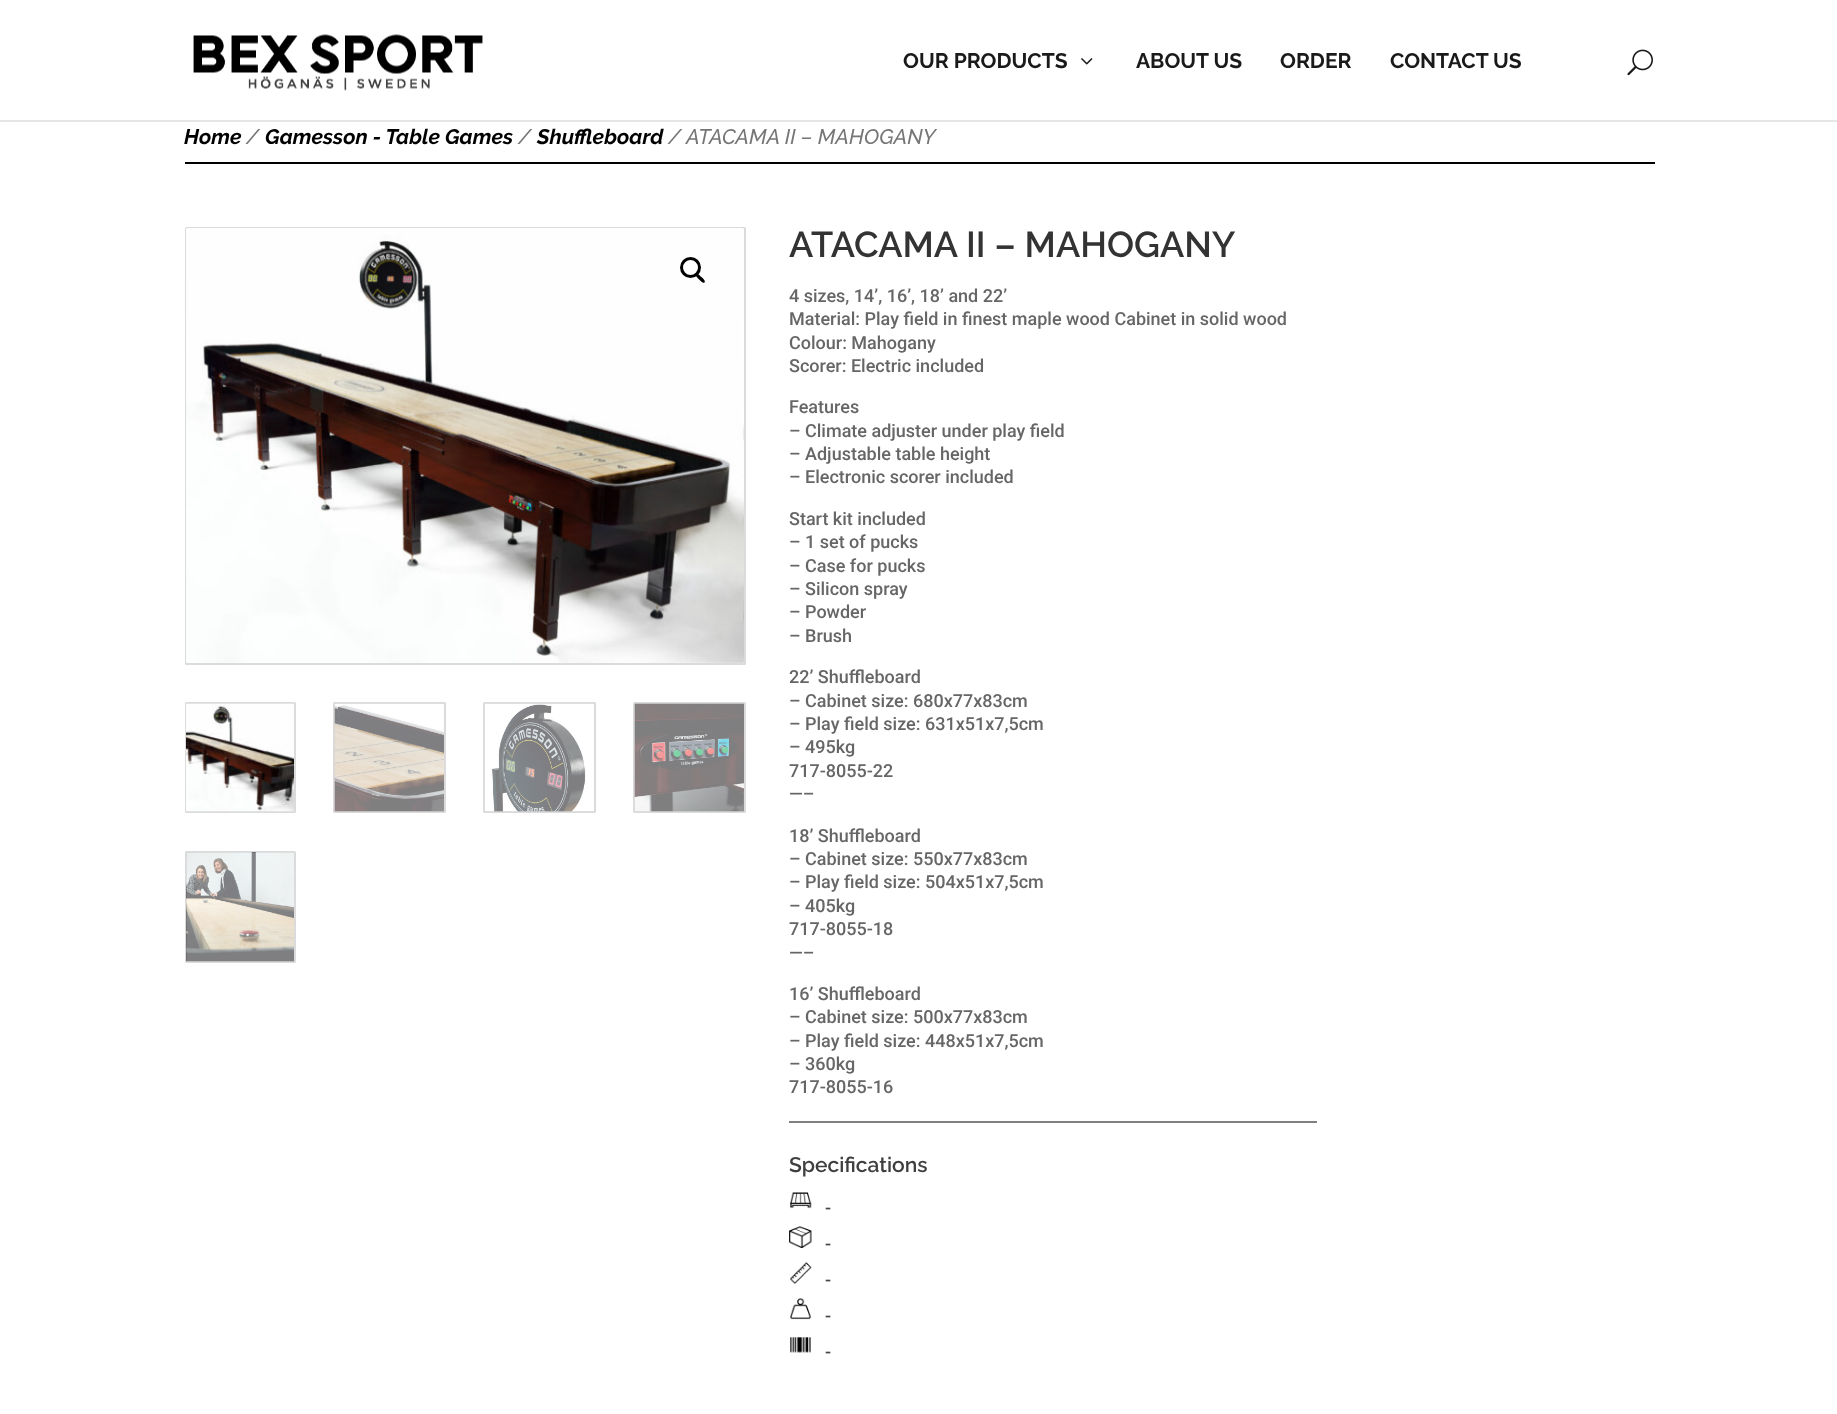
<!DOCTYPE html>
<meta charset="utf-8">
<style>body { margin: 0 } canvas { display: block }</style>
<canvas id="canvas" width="1837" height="1414"></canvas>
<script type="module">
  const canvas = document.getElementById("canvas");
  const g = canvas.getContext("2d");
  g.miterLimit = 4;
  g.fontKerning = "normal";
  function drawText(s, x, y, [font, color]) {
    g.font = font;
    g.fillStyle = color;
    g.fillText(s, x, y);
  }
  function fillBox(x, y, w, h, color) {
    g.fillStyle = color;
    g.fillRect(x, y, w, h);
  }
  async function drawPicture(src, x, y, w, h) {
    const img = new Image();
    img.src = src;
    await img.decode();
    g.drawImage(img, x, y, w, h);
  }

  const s1 = ["bold 21px Raleway", "#1A1A1A"];
  const s2 = ["italic bold 21px Raleway", "#000000"];
  const s3 = ["italic 500 21px Raleway", "#767676"];
  const s4 = ["600 36px Raleway", "#333333"];
  const s5 = ["500 18px Roboto", "#666666"];
  const s6 = ["600 21px Raleway", "#3F3F3F"];
  const s7 = ["500 18px Roboto", "#474747"];

  fillBox(0, 0, 1837, 1414, "#FFFFFF");
  g.fillStyle = "#E6E6E6";
  g.beginPath();
  g.moveTo(0, 120);
  g.lineTo(0, 122);
  g.lineTo(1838, 122);
  g.lineTo(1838, 2);
  g.lineTo(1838, 120);
  g.closePath();
  g.fill();
  await drawPicture("pic1.png", 193, 34, 290, 57);
  drawText("OUR PRODUCTS", 903, 68, s1);
  await drawPicture("pic2.png", 1081, 58, 12, 7);
  drawText("ABOUT US", 1136, 68, s1);
  drawText("ORDER", 1280, 68, s1);
  drawText("CONTACT US", 1390, 68, s1);
  await drawPicture("pic3.png", 1627, 49, 26, 27);
  drawText("Home", 184, 144, s2);
  drawText("/", 246, 144, s3);
  drawText("Gamesson - Table Games", 265, 144, s2);
  drawText("/", 518, 144, s3);
  drawText("Shuffleboard", 537, 144, s2);
  drawText("/", 668, 144, s3);
  drawText("ATACAMA II – MAHOGANY", 686, 144, s3);
  fillBox(185, 162, 1470, 2, "#000000");
  g.beginPath();
  g.roundRect(186, 228, 559, 436, 0.5);
  g.strokeStyle = "#DBDBDB";
  g.lineWidth = 2;
  g.stroke();
  await drawPicture("pic4.png", 186, 228, 558, 435);
  g.beginPath();
  g.arc(690.5, 267.5, 9, 0, Math.PI * 2);
  g.strokeStyle = "#000000";
  g.lineWidth = 3;
  g.stroke();
  g.beginPath();
  g.moveTo(696, 274);
  g.bezierCurveTo(698, 272.5, 700.5, 276.5, 701.5, 277);
  g.bezierCurveTo(702.5, 278, 706, 281, 704.5, 282.5);
  g.bezierCurveTo(703, 284, 700, 280, 699, 279.5);
  g.bezierCurveTo(698.5, 278.5, 694.5, 275.5, 696, 274);
  g.closePath();
  g.fill();
  g.beginPath();
  g.roundRect(186, 703, 109, 109, 0.5);
  g.strokeStyle = "#DBDBDB";
  g.lineWidth = 2;
  g.stroke();
  await drawPicture("pic5.png", 186, 703, 108, 109);
  g.beginPath();
  g.roundRect(334, 703, 111, 109, 0.5);
  g.stroke();
  await drawPicture("pic6.png", 334, 703, 110, 109);
  g.beginPath();
  g.roundRect(484, 703, 111, 109, 0.5);
  g.stroke();
  await drawPicture("pic7.png", 484, 703, 110, 109);
  g.beginPath();
  g.roundRect(634, 703, 111, 109, 0.5);
  g.stroke();
  await drawPicture("pic8.png", 634, 703, 110, 109);
  g.beginPath();
  g.roundRect(186, 852, 109, 110, 0.5);
  g.stroke();
  await drawPicture("pic9.png", 186, 852, 108, 110);
  drawText("ATACAMA II – MAHOGANY", 789, 257, s4);
  drawText("4 sizes, 14’, 16’, 18’ and 22’", 789, 302, s5);
  drawText("Material: Play field in finest maple wood Cabinet in solid wood", 789, 325, s5);
  drawText("Colour: Mahogany", 789, 349, s5);
  drawText("Scorer: Electric included", 789, 372, s5);
  drawText("Features", 789, 413, s5);
  drawText("– Climate adjuster under play field", 789, 437, s5);
  drawText("– Adjustable table height", 789, 460, s5);
  drawText("– Electronic scorer included", 789, 483, s5);
  drawText("Start kit included", 789, 525, s5);
  drawText("– 1 set of pucks", 789, 548, s5);
  drawText("– Case for pucks", 789, 572, s5);
  drawText("– Silicon spray", 789, 595, s5);
  drawText("– Powder", 789, 618, s5);
  drawText("– Brush", 789, 642, s5);
  drawText("22’ Shuffleboard", 789, 683, s5);
  drawText("– Cabinet size: 680x77x83cm", 789, 707, s5);
  drawText("– Play field size: 631x51x7,5cm", 789, 730, s5);
  drawText("– 495kg", 789, 753, s5);
  drawText("717-8055-22", 789, 777, s5);
  drawText("—–", 789, 800, s5);
  drawText("18’ Shuffleboard", 789, 842, s5);
  drawText("– Cabinet size: 550x77x83cm", 789, 865, s5);
  drawText("– Play field size: 504x51x7,5cm", 789, 888, s5);
  drawText("– 405kg", 789, 912, s5);
  drawText("717-8055-18", 789, 935, s5);
  drawText("—–", 789, 959, s5);
  drawText("16’ Shuffleboard", 789, 1000, s5);
  drawText("– Cabinet size: 500x77x83cm", 789, 1023, s5);
  drawText("– Play field size: 448x51x7,5cm", 789, 1047, s5);
  drawText("– 360kg", 789, 1070, s5);
  drawText("717-8055-16", 789, 1093, s5);
  fillBox(789, 1121, 528, 2, "#808080");
  drawText("Specifications", 789, 1172, s6);
  await drawPicture("pic10.png", 790, 1192, 22, 17);
  drawText("-", 825, 1214, s7);
  await drawPicture("pic11.png", 789, 1226, 23, 22);
  drawText("-", 825, 1250, s7);
  await drawPicture("pic12.png", 790, 1262, 22, 22);
  drawText("-", 825, 1286, s7);
  await drawPicture("pic13.png", 790, 1298, 21, 22);
  drawText("-", 825, 1322, s7);
  await drawPicture("pic14.png", 790, 1337, 21, 16);
  drawText("-", 825, 1358, s7);
</script>
